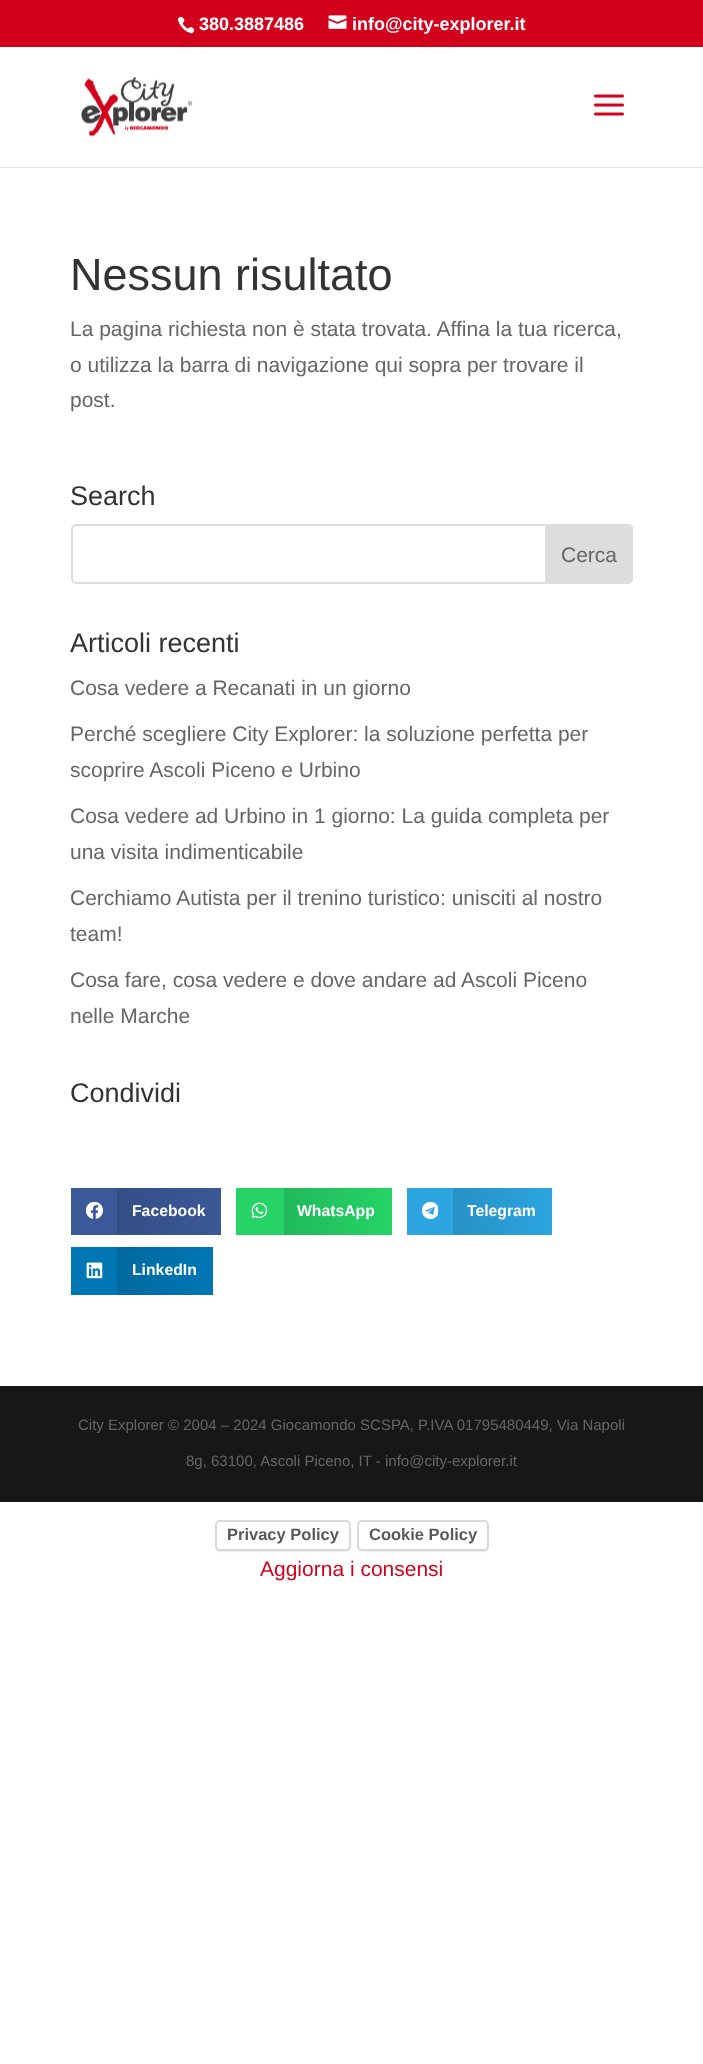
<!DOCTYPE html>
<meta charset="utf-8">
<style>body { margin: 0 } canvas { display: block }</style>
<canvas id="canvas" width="703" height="2064"></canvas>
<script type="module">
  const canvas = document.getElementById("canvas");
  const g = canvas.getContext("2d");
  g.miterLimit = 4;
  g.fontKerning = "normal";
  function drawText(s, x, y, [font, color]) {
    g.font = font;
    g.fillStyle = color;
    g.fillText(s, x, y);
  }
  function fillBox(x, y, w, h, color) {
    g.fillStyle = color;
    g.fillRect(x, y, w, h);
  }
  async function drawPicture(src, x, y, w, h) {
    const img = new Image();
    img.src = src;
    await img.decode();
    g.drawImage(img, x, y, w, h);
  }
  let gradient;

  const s1 = ["bold 18px Liberation Sans", "#FFFFFF"];
  const s2 = ["45px Liberation Sans", "#333333"];
  const s3 = ["21px Liberation Sans", "#666666"];
  const s4 = ["27px Liberation Sans", "#333333"];
  const s5 = ["bold 15.75px Liberation Sans", "#FFFFFF"];
  const s6 = ["15px Liberation Sans", "#666666"];
  const s7 = ["bold 16.5px Liberation Sans", "#595959"];
  const s8 = ["21px Liberation Sans", "#D3021C"];

  fillBox(0, 0, 703, 2064, "#FFFFFF");
  fillBox(0, 0, 703, 47, "#D3021C");
  await drawPicture("pic1.png", 177, 16, 18, 18);
  drawText("380.3887486", 199, 30, s1);
  await drawPicture("pic2.png", 328, 15, 19, 14);
  drawText("info@city-explorer.it", 352, 30, s1);
  g.fillStyle = "#E6E6E6";
  g.beginPath();
  g.moveTo(0, 166);
  g.lineTo(0, 168);
  g.lineTo(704, 168);
  g.lineTo(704, 48);
  g.lineTo(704, 166);
  g.closePath();
  g.fill();
  fillBox(0, 166, 703, 1, "#FFFFFF");
  await drawPicture("pic3.png", 81, 76, 112, 61);
  await drawPicture("pic4.png", 594, 94, 30, 22);
  drawText("Nessun risultato", 70, 290, s2);
  drawText("La pagina richiesta non è stata trovata. Affina la tua ricerca,", 70, 336, s3);
  drawText("o utilizza la barra di navigazione qui sopra per trovare il", 70, 372, s3);
  drawText("post.", 70, 407, s3);
  drawText("Search", 70, 505, s4);
  g.beginPath();
  g.roundRect(72, 525, 560, 58, 4);
  g.strokeStyle = "#DDDDDD";
  g.lineWidth = 2;
  g.stroke();
  g.fillStyle = "#DDDDDD";
  g.beginPath();
  g.roundRect(546, 525, 86, 58, [0, 4, 4, 0]);
  g.fill();
  g.stroke();
  drawText("Cerca", 561, 562, s3);
  drawText("Articoli recenti", 70, 652, s4);
  drawText("Cosa vedere a Recanati in un giorno", 70, 695, s3);
  drawText("Perché scegliere City Explorer: la soluzione perfetta per", 70, 741, s3);
  drawText("scoprire Ascoli Piceno e Urbino", 70, 777, s3);
  drawText("Cosa vedere ad Urbino in 1 giorno: La guida completa per", 70, 823, s3);
  drawText("una visita indimenticabile", 70, 859, s3);
  drawText("Cerchiamo Autista per il trenino turistico: unisciti al nostro", 70, 905, s3);
  drawText("team!", 70, 941, s3);
  drawText("Cosa fare, cosa vedere e dove andare ad Ascoli Piceno", 70, 987, s3);
  drawText("nelle Marche", 70, 1023, s3);
  drawText("Condividi", 70, 1102, s4);
  fillBox(71, 1188, 46, 47, "#3B5998");
  await drawPicture("pic5.png", 86, 1202, 18, 17);
  gradient = g.createLinearGradient(117, 1211, 221, 1211);
  gradient.addColorStop(0, "#344E86");
  gradient.addColorStop(1, "#3B5998");
  g.fillStyle = gradient;
  g.fillRect(117, 1188, 104, 47);
  drawText("Facebook", 132, 1216, s5);
  fillBox(236, 1188, 48, 47, "#25D366");
  await drawPicture("pic6.png", 251, 1202, 17, 17);
  gradient = g.createLinearGradient(284, 1211, 392, 1211);
  gradient.addColorStop(0, "#21BA5A");
  gradient.addColorStop(1, "#25D366");
  g.fillStyle = gradient;
  g.fillRect(284, 1188, 108, 47);
  drawText("WhatsApp", 297, 1216, s5);
  fillBox(407, 1188, 46, 47, "#2CA5E0");
  await drawPicture("pic7.png", 422, 1202, 16, 18);
  gradient = g.createLinearGradient(453, 1211, 552, 1211);
  gradient.addColorStop(0, "#2791C5");
  gradient.addColorStop(1, "#2CA5E0");
  g.fillStyle = gradient;
  g.fillRect(453, 1188, 99, 47);
  drawText("Telegram", 467, 1216, s5);
  fillBox(71, 1247, 46, 48, "#0077B5");
  await drawPicture("pic8.png", 86, 1262, 17, 17);
  gradient = g.createLinearGradient(117, 1271, 213, 1271);
  gradient.addColorStop(0, "#00699F");
  gradient.addColorStop(1, "#0077B5");
  g.fillStyle = gradient;
  g.fillRect(117, 1247, 96, 48);
  drawText("LinkedIn", 132, 1275, s5);
  fillBox(0, 1386, 703, 116, "#171717");
  drawText("City Explorer © 2004 – 2024 Giocamondo SCSPA, P.IVA 01795480449, Via Napoli", 78, 1430, s6);
  drawText("8g, 63100, Ascoli Piceno, IT - info@city-explorer.it", 186, 1466, s6);
  g.fillStyle = "rgba(0, 0, 0, 0.15)";
  g.filter = "blur(1px)";
  g.beginPath();
  g.roundRect(216, 1523, 134, 28, 3);
  g.fill();
  g.filter = "none";
  g.fillStyle = "#FFFFFF";
  g.beginPath();
  g.roundRect(216, 1521, 134, 29, 4);
  g.fill();
  g.strokeStyle = "#D9D9D9";
  g.stroke();
  drawText("Privacy Policy", 227, 1540, s7);
  g.fillStyle = "rgba(0, 0, 0, 0.15)";
  g.filter = "blur(1px)";
  g.beginPath();
  g.roundRect(359, 1523, 129, 28, 3);
  g.fill();
  g.filter = "none";
  g.fillStyle = "#FFFFFF";
  g.beginPath();
  g.roundRect(358, 1521, 130, 29, 4);
  g.fill();
  g.stroke();
  drawText("Cookie Policy", 369, 1540, s7);
  drawText("Aggiorna i consensi", 260, 1576, s8);
</script>
